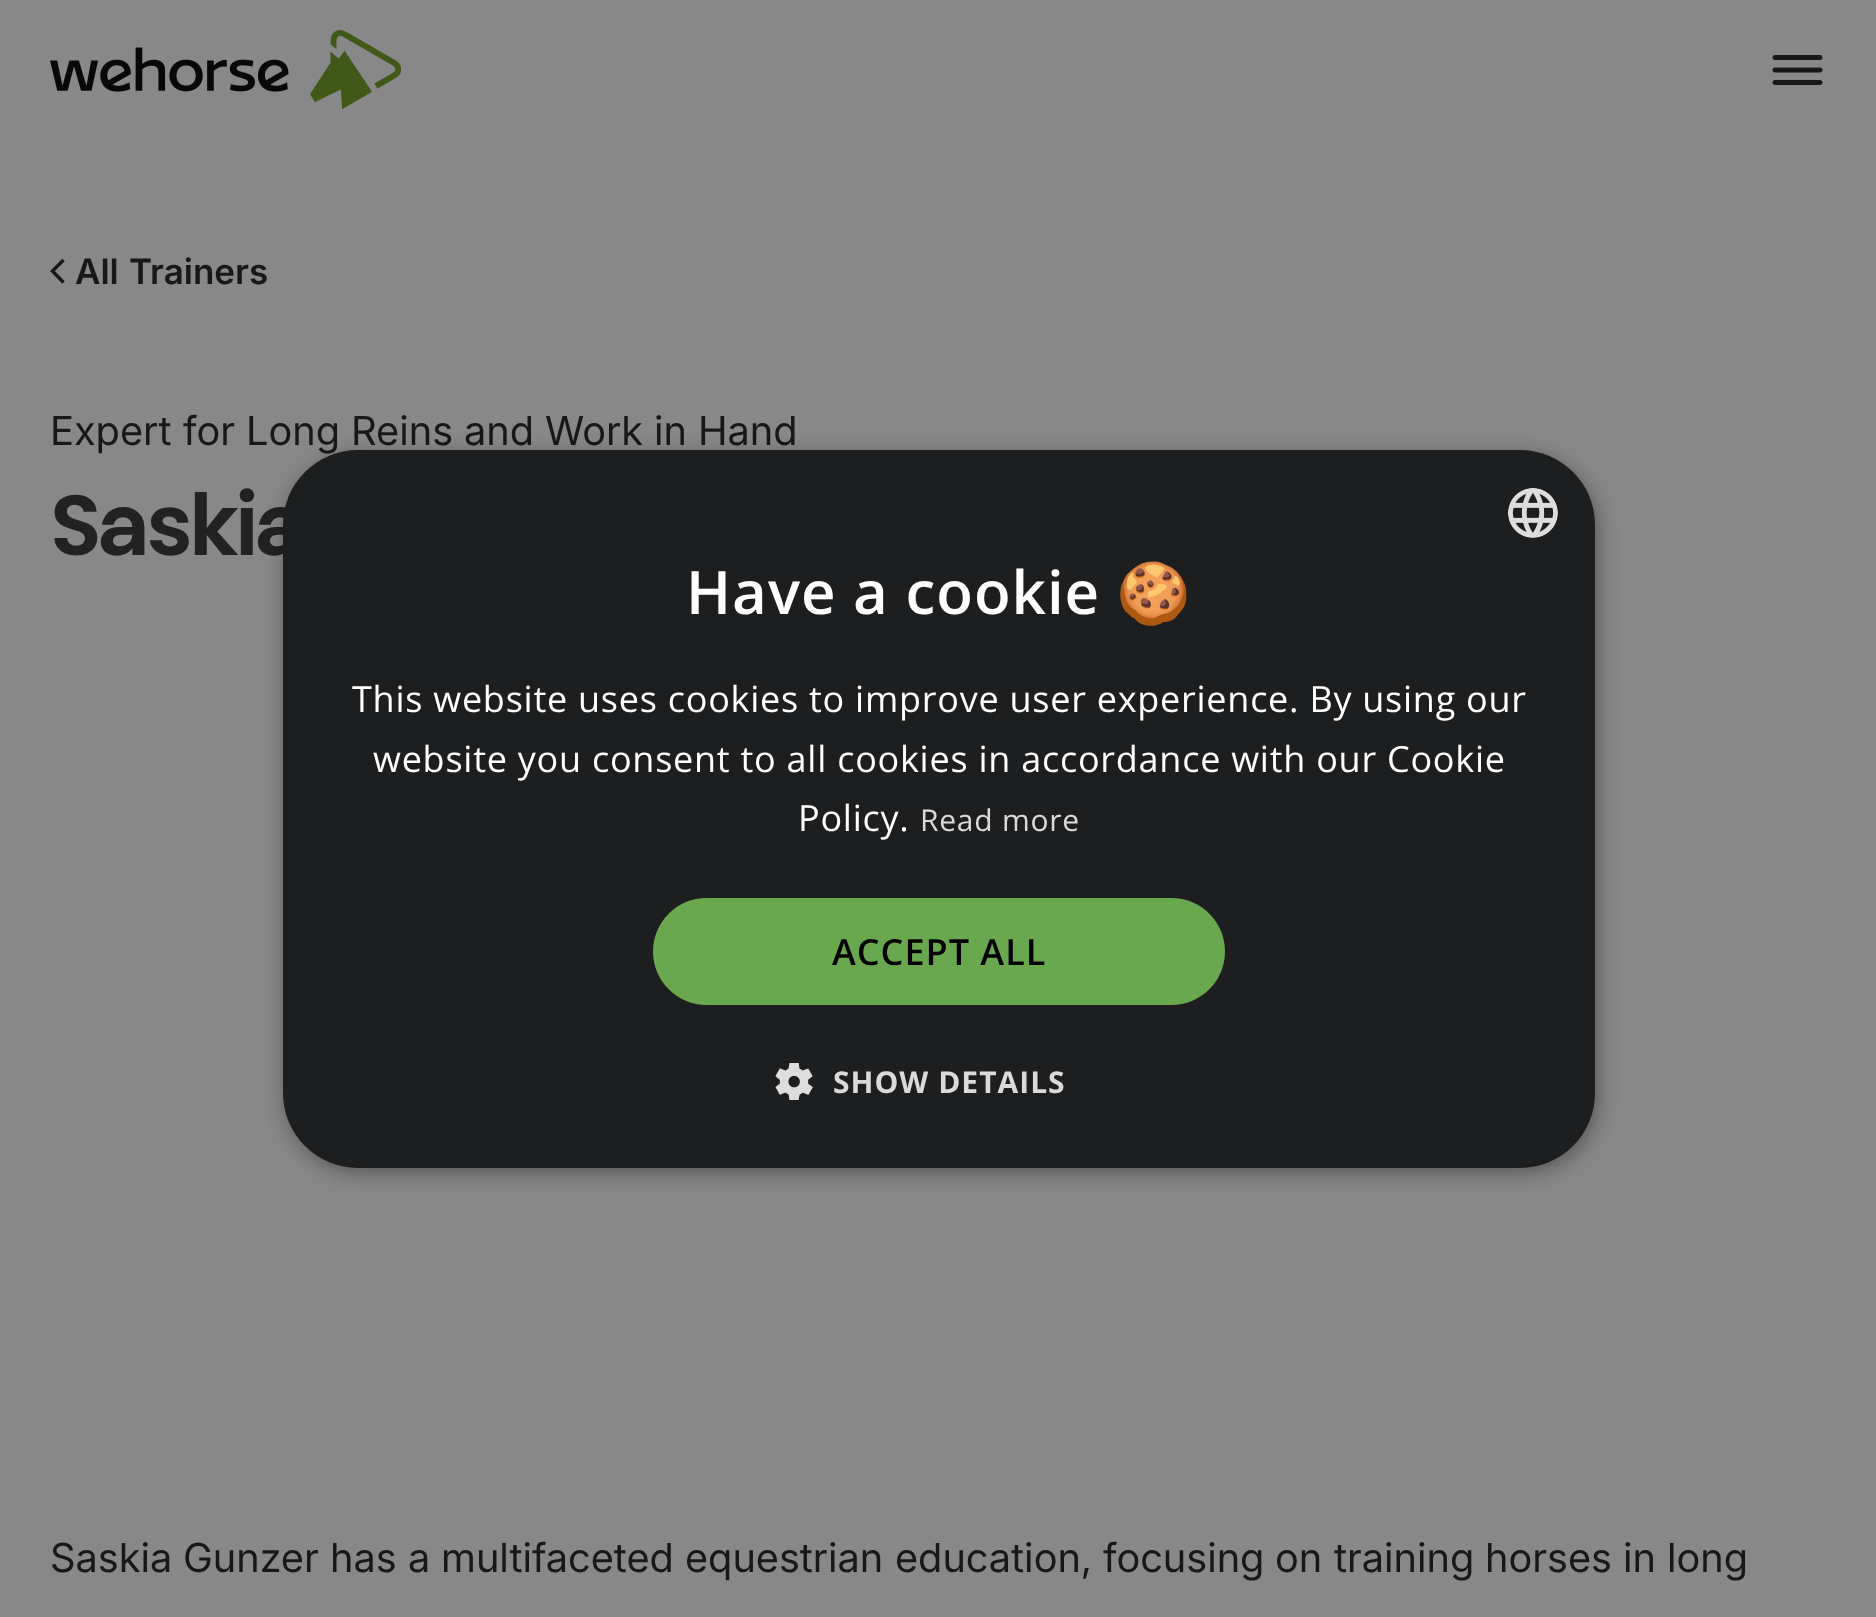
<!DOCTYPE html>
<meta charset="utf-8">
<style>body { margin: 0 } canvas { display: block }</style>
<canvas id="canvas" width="1876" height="1617"></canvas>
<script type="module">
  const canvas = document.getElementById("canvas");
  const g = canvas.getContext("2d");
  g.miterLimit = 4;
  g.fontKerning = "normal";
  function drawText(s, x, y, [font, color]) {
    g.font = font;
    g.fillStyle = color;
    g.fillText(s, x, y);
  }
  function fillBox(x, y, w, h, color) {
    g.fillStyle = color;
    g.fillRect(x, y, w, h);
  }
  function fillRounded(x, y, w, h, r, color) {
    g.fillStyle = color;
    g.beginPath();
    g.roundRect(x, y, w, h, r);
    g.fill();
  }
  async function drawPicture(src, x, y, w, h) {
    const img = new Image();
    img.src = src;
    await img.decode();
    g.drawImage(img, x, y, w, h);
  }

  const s1 = ["600 35px Inter", "#171818"];
  const s2 = ["40px Inter", "#171818"];
  const s3 = ["600 85px Poppins", "#222222"];
  const s4 = ["600 60px Open Sans", "#FFFFFF"];
  const s5 = ["bold 60px Noto Color Emoji", "#FFFFFF"];
  const s6 = ["36px Open Sans", "#FFFFFF"];
  const s7 = ["30px Open Sans", "#DADADA"];
  const s8 = ["600 36px Open Sans", "#000000"];
  const s9 = ["bold 30px Open Sans", "#DADADA"];

  fillBox(0, 0, 1876, 1617, "#888888");
  await drawPicture("pic1.png", 50, 30, 351, 79);
  await drawPicture("pic2.png", 1772, 55, 51, 30);
  g.beginPath();
  g.moveTo(63.5, 282.5);
  g.lineTo(52.5, 271);
  g.lineTo(63.5, 260);
  g.strokeStyle = "#171818";
  g.lineWidth = 3.4;
  g.stroke();
  drawText("All", 75, 284, s1);
  drawText("Trainers", 129, 284, s1);
  drawText("Expert", 50, 445, s2);
  drawText("for", 183, 445, s2);
  drawText("Long", 246, 445, s2);
  drawText("Reins", 351, 445, s2);
  drawText("and", 464, 445, s2);
  drawText("Work", 545, 445, s2);
  drawText("in", 654, 445, s2);
  drawText("Hand", 698, 445, s2);
  g.letterSpacing = "-3.75px";
  drawText("Saskia", 50, 555, s3);
  g.letterSpacing = "0px";
  drawText("Saskia", 50, 1572, s2);
  drawText("Gunzer", 183, 1572, s2);
  drawText("has", 330, 1572, s2);
  drawText("a", 408, 1572, s2);
  drawText("multifaceted", 441, 1572, s2);
  drawText("equestrian", 685, 1572, s2);
  drawText("education,", 895, 1572, s2);
  drawText("focusing", 1103, 1572, s2);
  drawText("on", 1275, 1572, s2);
  drawText("training", 1334, 1572, s2);
  drawText("horses", 1485, 1572, s2);
  drawText("in", 1623, 1572, s2);
  drawText("long", 1667, 1572, s2);
  g.fillStyle = "rgba(0, 0, 0, 0.35)";
  g.filter = "blur(10px)";
  g.beginPath();
  g.roundRect(285, 455, 1313, 718, 75);
  g.fill();
  g.filter = "none";
  fillRounded(283, 450, 1312, 718, 75, "#1D1E1F");
  await drawPicture("pic3.png", 1508, 488, 50, 50);
  g.letterSpacing = "1px";
  drawText("Have a cookie", 686, 614, s4);
  drawText("🍪", 1116, 614, s5);
  g.letterSpacing = "0.75px";
  drawText("This website uses cookies to improve user experience. By using our", 352, 712, s6);
  drawText("website you consent to all cookies in accordance with our Cookie", 373, 772, s6);
  drawText("Policy.", 798, 831, s6);
  drawText("Read more", 920, 831, s7);
  fillRounded(653, 898, 572, 107, 53.5, "#6AA84F");
  g.letterSpacing = "1px";
  drawText("ACCEPT ALL", 832, 965, s8);
  await drawPicture("pic4.png", 775, 1063, 38, 37);
  drawText("SHOW DETAILS", 833, 1093, s9);
</script>
